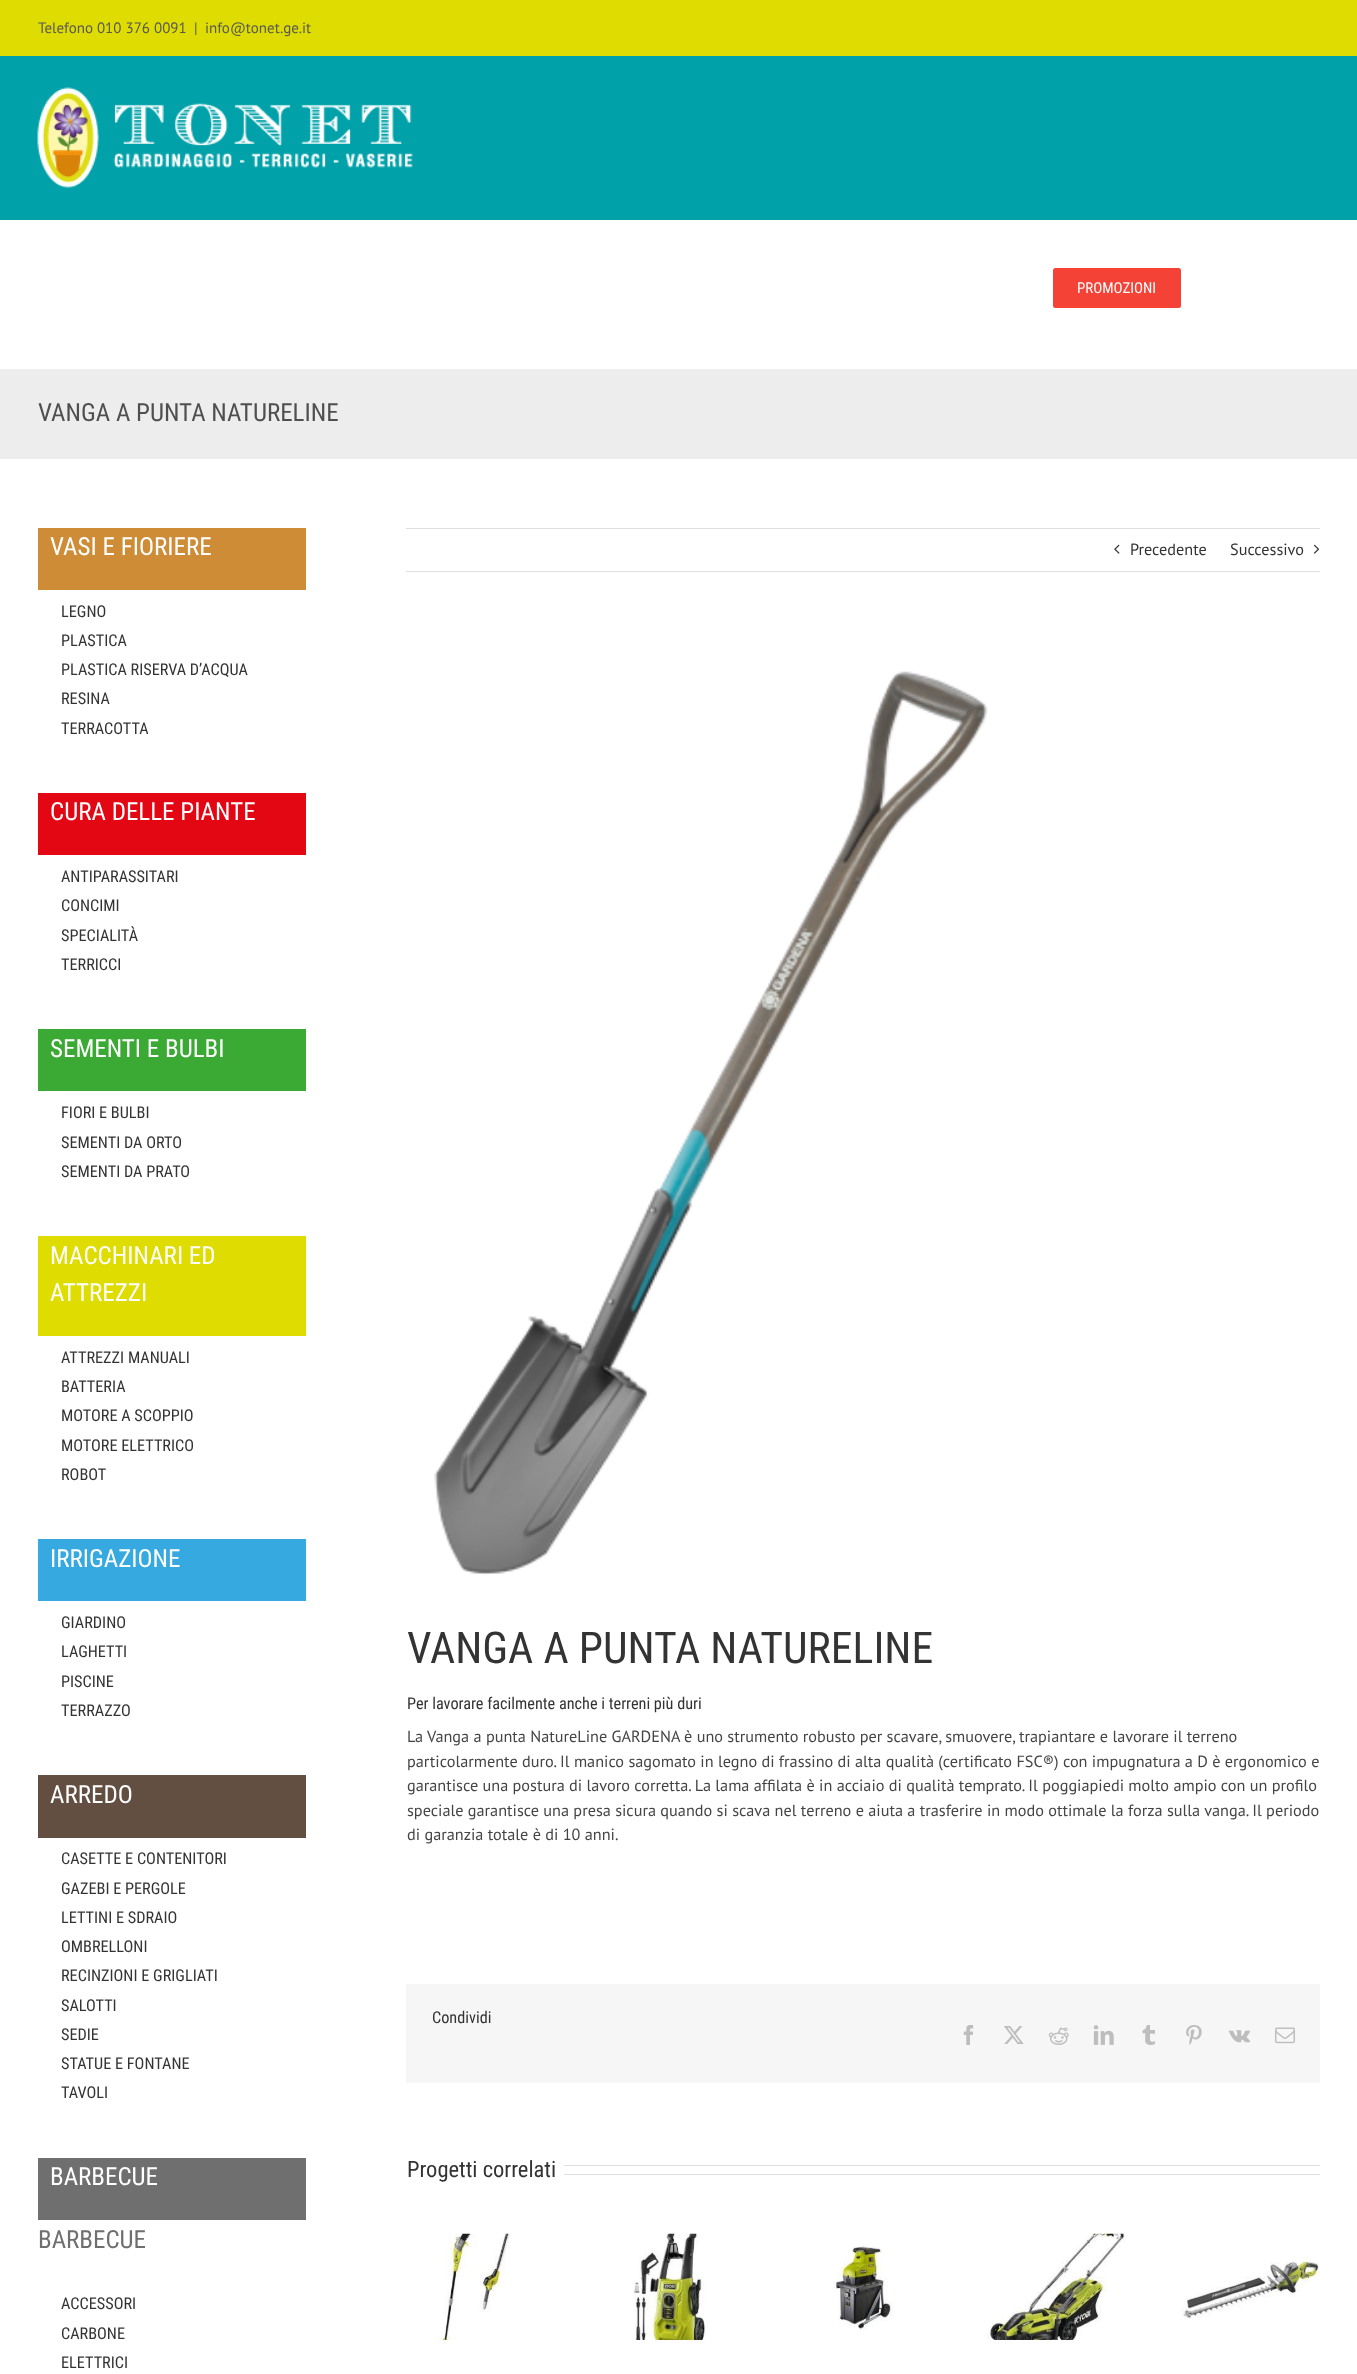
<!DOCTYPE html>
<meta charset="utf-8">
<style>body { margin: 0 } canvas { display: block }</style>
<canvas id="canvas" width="1357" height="2374"></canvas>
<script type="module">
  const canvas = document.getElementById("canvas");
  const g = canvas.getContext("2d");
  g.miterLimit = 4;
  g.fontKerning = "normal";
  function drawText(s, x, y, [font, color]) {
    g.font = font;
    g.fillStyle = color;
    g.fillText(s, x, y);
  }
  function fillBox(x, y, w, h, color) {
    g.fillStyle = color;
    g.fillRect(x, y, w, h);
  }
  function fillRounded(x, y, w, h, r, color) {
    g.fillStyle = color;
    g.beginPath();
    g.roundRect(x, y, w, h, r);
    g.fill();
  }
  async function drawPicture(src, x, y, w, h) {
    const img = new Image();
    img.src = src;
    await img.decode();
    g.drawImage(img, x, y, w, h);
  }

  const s1 = ["15px PT Sans", "#575756"];
  const s2 = ["15px Roboto Condensed", "#FFFFFF"];
  const s3 = ["25px Roboto Condensed", "#4F4F4F"];
  const s4 = ["25px Roboto Condensed", "#FFFFFF"];
  const s5 = ["16.25px Roboto Condensed", "#333333"];
  const s6 = ["25px Roboto Condensed", "#706F6F"];
  const s7 = ["16.25px PT Sans", "#333333"];
  const s8 = ["43.75px Roboto Condensed", "#333333"];
  const s9 = ["16.25px PT Sans", "#444444"];
  const s10 = ["22.5px Roboto Condensed", "#333333"];

  fillBox(0, 0, 1357, 2374, "#FFFFFF");
  fillBox(0, 0, 1357, 56, "#DEDC00");
  drawText("Telefono 010 376 0091", 38, 33, s1);
  drawText("|", 194, 33, s1);
  drawText("info@tonet.ge.it", 205, 33, s1);
  fillBox(0, 56, 1357, 164, "#00A1A9");
  await drawPicture("pic1.png", 37, 87, 376, 101);
  fillRounded(1053, 268, 128, 40, 2.5, "#F44336");
  drawText("PROMOZIONI", 1077, 293, s2);
  fillBox(0, 369, 1357, 90, "#EDEDED");
  drawText("VANGA A PUNTA NATURELINE", 38, 421, s3);
  fillBox(38, 528, 268, 62, "#CE8C36");
  drawText("VASI E FIORIERE", 50, 555, s4);
  drawText("LEGNO", 61, 617, s5);
  drawText("PLASTICA", 61, 646, s5);
  drawText("PLASTICA RISERVA D’ACQUA", 61, 675, s5);
  drawText("RESINA", 61, 704, s5);
  drawText("TERRACOTTA", 61, 734, s5);
  fillBox(38, 793, 268, 62, "#E30613");
  drawText("CURA DELLE PIANTE", 50, 820, s4);
  drawText("ANTIPARASSITARI", 61, 882, s5);
  drawText("CONCIMI", 61, 911, s5);
  drawText("SPECIALITÀ", 61, 941, s5);
  drawText("TERRICCI", 61, 970, s5);
  fillBox(38, 1029, 268, 62, "#3AAA35");
  drawText("SEMENTI E BULBI", 50, 1057, s4);
  drawText("FIORI E BULBI", 61, 1118, s5);
  drawText("SEMENTI DA ORTO", 61, 1148, s5);
  drawText("SEMENTI DA PRATO", 61, 1177, s5);
  fillBox(38, 1236, 268, 100, "#DEDC00");
  drawText("MACCHINARI ED", 50, 1264, s4);
  drawText("ATTREZZI", 50, 1301, s4);
  drawText("ATTREZZI MANUALI", 61, 1363, s5);
  drawText("BATTERIA", 61, 1392, s5);
  drawText("MOTORE A SCOPPIO", 61, 1421, s5);
  drawText("MOTORE ELETTRICO", 61, 1451, s5);
  drawText("ROBOT", 61, 1480, s5);
  fillBox(38, 1539, 268, 62, "#36A9E1");
  drawText("IRRIGAZIONE", 50, 1567, s4);
  drawText("GIARDINO", 61, 1628, s5);
  drawText("LAGHETTI", 61, 1657, s5);
  drawText("PISCINE", 61, 1687, s5);
  drawText("TERRAZZO", 61, 1716, s5);
  fillBox(38, 1775, 268, 63, "#634E42");
  drawText("ARREDO", 50, 1803, s4);
  drawText("CASETTE E CONTENITORI", 61, 1864, s5);
  drawText("GAZEBI E PERGOLE", 61, 1894, s5);
  drawText("LETTINI E SDRAIO", 61, 1923, s5);
  drawText("OMBRELLONI", 61, 1952, s5);
  drawText("RECINZIONI E GRIGLIATI", 61, 1981, s5);
  drawText("SALOTTI", 61, 2011, s5);
  drawText("SEDIE", 61, 2040, s5);
  drawText("STATUE E FONTANE", 61, 2069, s5);
  drawText("TAVOLI", 61, 2098, s5);
  fillBox(38, 2158, 268, 62, "#706F6F");
  drawText("BARBECUE", 50, 2185, s4);
  drawText("BARBECUE", 38, 2248, s6);
  drawText("ACCESSORI", 61, 2309, s5);
  drawText("CARBONE", 61, 2339, s5);
  drawText("ELETTRICI", 61, 2368, s5);
  fillBox(406, 528, 914, 1, "#E0DEDE");
  fillBox(406, 571, 914, 1, "#E0DEDE");
  await drawPicture("pic2.png", 1114, 544, 6, 10);
  drawText("Precedente", 1130, 555, s7);
  drawText("Successivo", 1230, 555, s7);
  await drawPicture("pic3.png", 1313, 544, 7, 10);
  await drawPicture("pic4.png", 434, 671, 554, 904);
  drawText("VANGA A PUNTA NATURELINE", 407, 1663, s8);
  drawText("Per lavorare facilmente anche i terreni più duri", 407, 1709, s5);
  drawText("La Vanga a punta NatureLine GARDENA è uno strumento robusto per scavare, smuovere, trapiantare e lavorare il terreno", 407, 1742, s9);
  drawText("particolarmente duro. Il manico sagomato in legno di frassino di alta qualità (certificato FSC®) con impugnatura a D è ergonomico e", 407, 1767, s9);
  drawText("garantisce una postura di lavoro corretta. La lama affilata è in acciaio di qualità temprato. Il poggiapiedi molto ampio con un profilo", 407, 1791, s9);
  drawText("speciale garantisce una presa sicura quando si scava nel terreno e aiuta a trasferire in modo ottimale la forza sulla vanga. Il periodo", 407, 1816, s9);
  drawText("di garanzia totale è di 10 anni.", 407, 1840, s9);
  fillBox(406, 1984, 914, 99, "#F6F6F6");
  drawText("Condividi", 432, 2023, s5);
  await drawPicture("pic5.png", 963, 2025, 11, 20);
  await drawPicture("pic6.png", 1004, 2026, 20, 18);
  await drawPicture("pic7.png", 1048, 2027, 21, 18);
  await drawPicture("pic8.png", 1093, 2025, 21, 20);
  await drawPicture("pic9.png", 1142, 2025, 13, 20);
  await drawPicture("pic10.png", 1186, 2025, 16, 20);
  await drawPicture("pic11.png", 1228, 2030, 23, 13);
  await drawPicture("pic12.png", 1275, 2027, 20, 17);
  drawText("Progetti correlati", 407, 2177, s10);
  fillBox(564, 2165, 756, 1, "#E0DEDE");
  fillBox(564, 2174, 756, 1, "#E0DEDE");
  await drawPicture("pic13.png", 437, 2233, 73, 107);
  await drawPicture("pic14.png", 633, 2233, 75, 107);
  await drawPicture("pic15.png", 833, 2244, 60, 86);
  await drawPicture("pic16.png", 987, 2233, 139, 107);
  await drawPicture("pic17.png", 1182, 2257, 138, 62);
</script>
